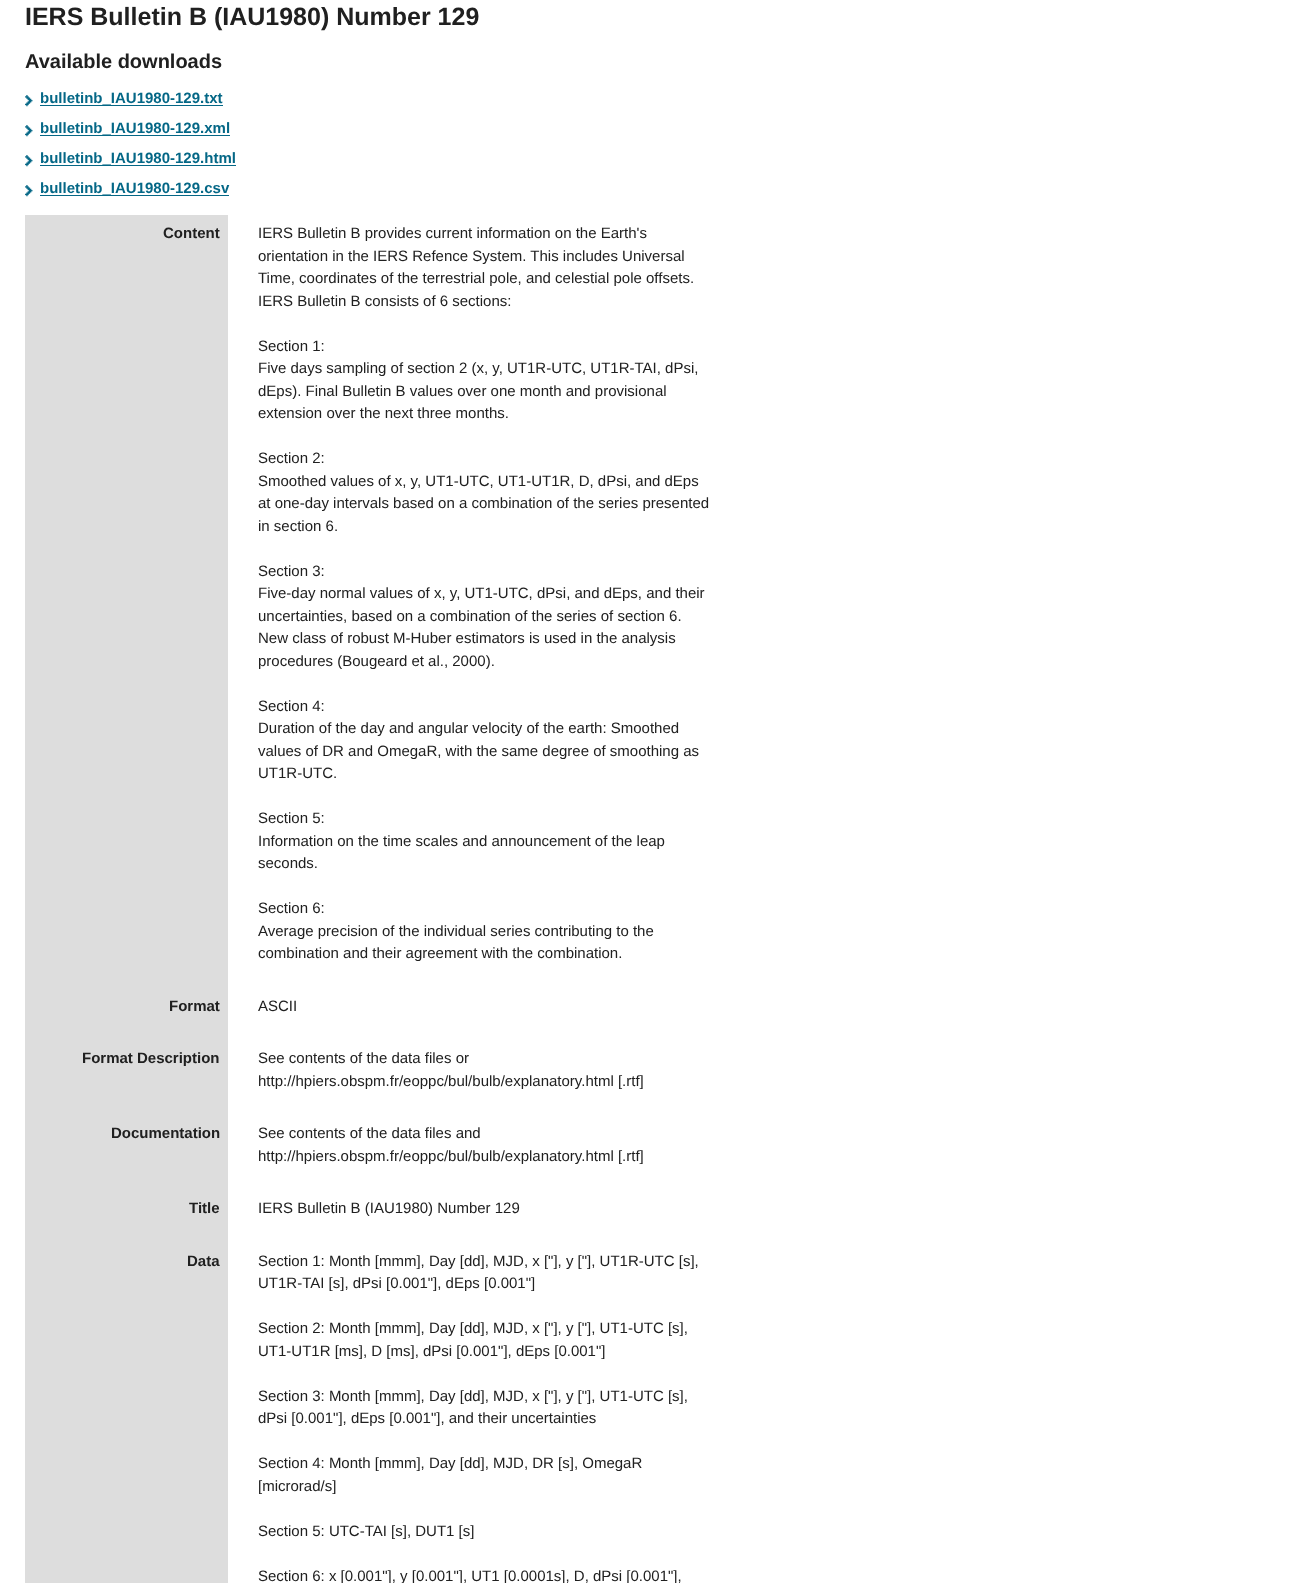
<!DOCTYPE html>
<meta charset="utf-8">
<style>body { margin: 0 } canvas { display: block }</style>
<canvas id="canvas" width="1296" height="1583"></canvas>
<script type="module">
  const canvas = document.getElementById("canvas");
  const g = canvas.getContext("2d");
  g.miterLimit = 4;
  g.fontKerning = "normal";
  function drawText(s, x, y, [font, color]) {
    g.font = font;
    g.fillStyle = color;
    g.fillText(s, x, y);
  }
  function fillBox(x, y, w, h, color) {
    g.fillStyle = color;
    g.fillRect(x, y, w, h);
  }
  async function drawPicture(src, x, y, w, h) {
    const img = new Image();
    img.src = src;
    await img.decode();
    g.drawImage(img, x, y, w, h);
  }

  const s1 = ["bold 25px Liberation Sans", "#202020"];
  const s2 = ["bold 20px Liberation Sans", "#202020"];
  const s3 = ["bold 15px Liberation Sans", "#046786"];
  const s4 = ["bold 15px Liberation Sans", "#202020"];
  const s5 = ["15px Liberation Sans", "#202020"];

  fillBox(0, 0, 1296, 1583, "#FFFFFF");
  drawText("IERS Bulletin B (IAU1980) Number 129", 25, 25, s1);
  drawText("Available downloads", 25, 68, s2);
  await drawPicture("pic1.png", 25, 95, 8, 12);
  drawText("bulletinb_IAU1980-129.txt", 40, 103, s3);
  fillBox(40, 105, 183, 1, "#046786");
  await drawPicture("pic1.png", 25, 125, 8, 12);
  drawText("bulletinb_IAU1980-129.xml", 40, 133, s3);
  fillBox(40, 135, 190, 1, "#046786");
  await drawPicture("pic1.png", 25, 155, 8, 12);
  drawText("bulletinb_IAU1980-129.html", 40, 163, s3);
  fillBox(40, 165, 196, 1, "#046786");
  await drawPicture("pic1.png", 25, 185, 8, 12);
  drawText("bulletinb_IAU1980-129.csv", 40, 193, s3);
  fillBox(40, 195, 189, 1, "#046786");
  fillBox(25, 215, 203, 1368, "#DDDDDD");
  drawText("Content", 163, 238, s4);
  drawText("IERS Bulletin B provides current information on the Earth's", 258, 238, s5);
  drawText("orientation in the IERS Refence System. This includes Universal", 258, 261, s5);
  drawText("Time, coordinates of the terrestrial pole, and celestial pole offsets.", 258, 283, s5);
  drawText("IERS Bulletin B consists of 6 sections:", 258, 306, s5);
  drawText("Section 1:", 258, 351, s5);
  drawText("Five days sampling of section 2 (x, y, UT1R-UTC, UT1R-TAI, dPsi,", 258, 373, s5);
  drawText("dEps). Final Bulletin B values over one month and provisional", 258, 396, s5);
  drawText("extension over the next three months.", 258, 418, s5);
  drawText("Section 2:", 258, 463, s5);
  drawText("Smoothed values of x, y, UT1-UTC, UT1-UT1R, D, dPsi, and dEps", 258, 486, s5);
  drawText("at one-day intervals based on a combination of the series presented", 258, 508, s5);
  drawText("in section 6.", 258, 531, s5);
  drawText("Section 3:", 258, 576, s5);
  drawText("Five-day normal values of x, y, UT1-UTC, dPsi, and dEps, and their", 258, 598, s5);
  drawText("uncertainties, based on a combination of the series of section 6.", 258, 621, s5);
  drawText("New class of robust M-Huber estimators is used in the analysis", 258, 643, s5);
  drawText("procedures (Bougeard et al., 2000).", 258, 666, s5);
  drawText("Section 4:", 258, 711, s5);
  drawText("Duration of the day and angular velocity of the earth: Smoothed", 258, 733, s5);
  drawText("values of DR and OmegaR, with the same degree of smoothing as", 258, 756, s5);
  drawText("UT1R-UTC.", 258, 778, s5);
  drawText("Section 5:", 258, 823, s5);
  drawText("Information on the time scales and announcement of the leap", 258, 846, s5);
  drawText("seconds.", 258, 868, s5);
  drawText("Section 6:", 258, 913, s5);
  drawText("Average precision of the individual series contributing to the", 258, 936, s5);
  drawText("combination and their agreement with the combination.", 258, 958, s5);
  drawText("Format", 169, 1011, s4);
  drawText("ASCII", 258, 1011, s5);
  drawText("Format Description", 82, 1063, s4);
  drawText("See contents of the data files or", 258, 1063, s5);
  drawText("http://hpiers.obspm.fr/eoppc/bul/bulb/explanatory.html [.rtf]", 258, 1086, s5);
  drawText("Documentation", 111, 1138, s4);
  drawText("See contents of the data files and", 258, 1138, s5);
  drawText("http://hpiers.obspm.fr/eoppc/bul/bulb/explanatory.html [.rtf]", 258, 1161, s5);
  drawText("Title", 189, 1213, s4);
  drawText("IERS Bulletin B (IAU1980) Number 129", 258, 1213, s5);
  drawText("Data", 187, 1266, s4);
  drawText("Section 1: Month [mmm], Day [dd], MJD, x [\"], y [\"], UT1R-UTC [s],", 258, 1266, s5);
  drawText("UT1R-TAI [s], dPsi [0.001\"], dEps [0.001\"]", 258, 1288, s5);
  drawText("Section 2: Month [mmm], Day [dd], MJD, x [\"], y [\"], UT1-UTC [s],", 258, 1333, s5);
  drawText("UT1-UT1R [ms], D [ms], dPsi [0.001\"], dEps [0.001\"]", 258, 1356, s5);
  drawText("Section 3: Month [mmm], Day [dd], MJD, x [\"], y [\"], UT1-UTC [s],", 258, 1401, s5);
  drawText("dPsi [0.001\"], dEps [0.001\"], and their uncertainties", 258, 1423, s5);
  drawText("Section 4: Month [mmm], Day [dd], MJD, DR [s], OmegaR", 258, 1468, s5);
  drawText("[microrad/s]", 258, 1491, s5);
  drawText("Section 5: UTC-TAI [s], DUT1 [s]", 258, 1536, s5);
  drawText("Section 6: x [0.001\"], y [0.001\"], UT1 [0.0001s], D, dPsi [0.001\"],", 258, 1581, s5);
</script>
